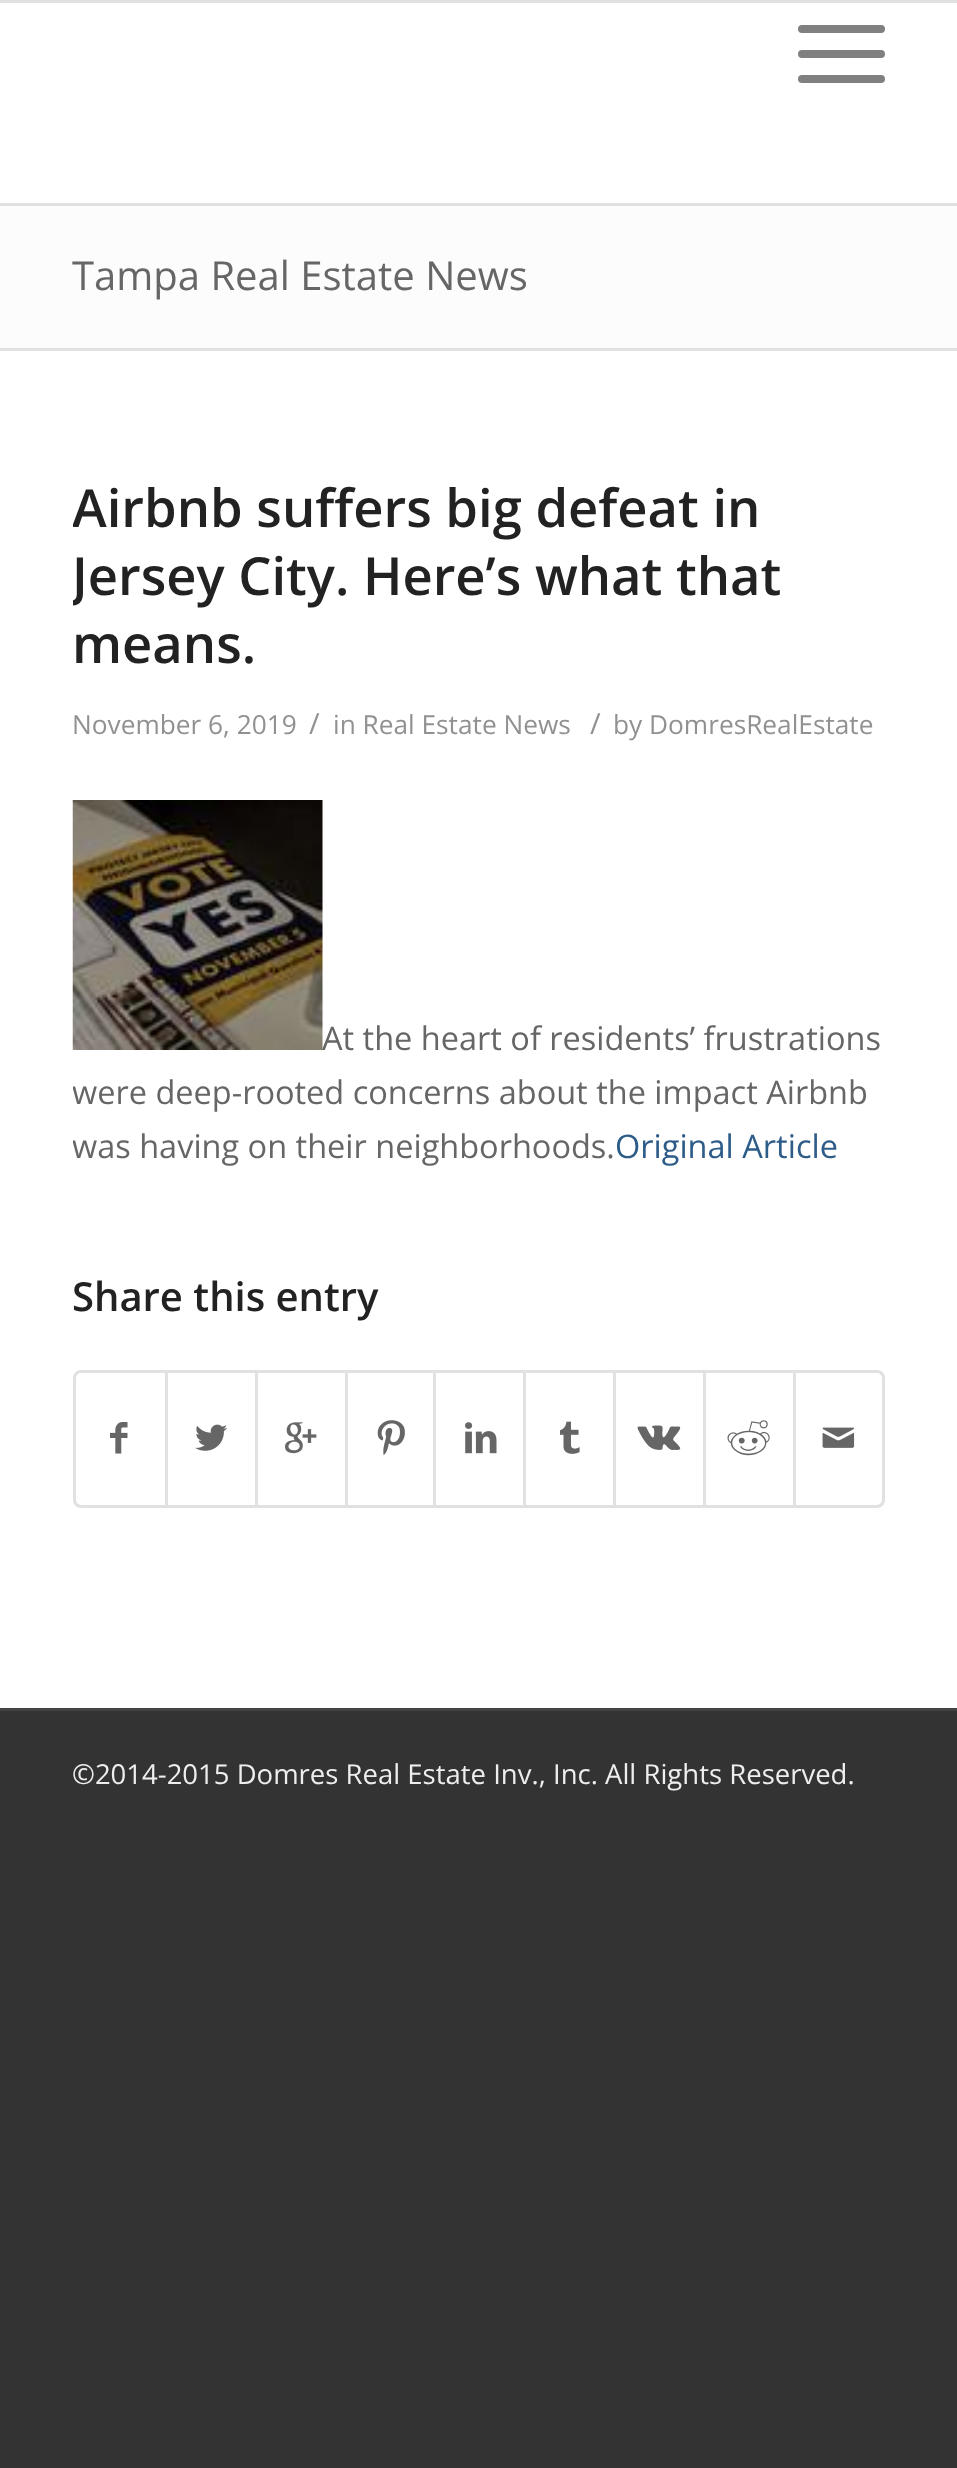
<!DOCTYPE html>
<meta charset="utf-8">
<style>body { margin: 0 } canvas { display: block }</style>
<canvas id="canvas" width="957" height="2468"></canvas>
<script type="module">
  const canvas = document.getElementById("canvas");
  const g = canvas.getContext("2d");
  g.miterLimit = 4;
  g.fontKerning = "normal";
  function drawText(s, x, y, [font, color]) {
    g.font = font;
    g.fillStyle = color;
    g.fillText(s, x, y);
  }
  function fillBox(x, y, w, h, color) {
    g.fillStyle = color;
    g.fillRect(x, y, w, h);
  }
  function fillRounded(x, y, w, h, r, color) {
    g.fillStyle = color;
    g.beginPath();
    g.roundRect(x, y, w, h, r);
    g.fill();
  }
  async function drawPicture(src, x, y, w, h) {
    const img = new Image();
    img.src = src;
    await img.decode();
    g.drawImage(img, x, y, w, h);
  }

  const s1 = ["40px Open Sans", "#666666"];
  const s2 = ["600 52.5px Open Sans", "#222222"];
  const s3 = ["26.25px Open Sans", "#919191"];
  const s4 = ["29px Open Sans", "#919191"];
  const s5 = ["32.5px Open Sans", "#666666"];
  const s6 = ["32.5px Open Sans", "#2D5C88"];
  const s7 = ["600 40px Open Sans", "#222222"];
  const s8 = ["27.5px Open Sans", "#EEEEEE"];

  fillBox(0, 0, 957, 2468, "#333333");
  fillBox(0, 0, 957, 3, "#E1E1E1");
  fillBox(0, 203, 957, 3, "#E1E1E1");
  fillBox(0, 3, 957, 200, "#FFFFFF");
  fillRounded(798, 50, 87, 8, 4, "#808080");
  fillRounded(798, 25, 87, 8, 4, "#808080");
  fillRounded(798, 75, 87, 8, 4, "#808080");
  fillBox(0, 351, 957, 1357, "#FFFFFF");
  fillBox(0, 206, 957, 142, "#FCFCFC");
  drawText("Tampa Real Estate News", 72, 290, s1);
  fillBox(0, 348, 957, 3, "#E1E1E1");
  g.save();
  g.beginPath();
  g.rect(73, 475, 812, 1058);
  g.clip();
  drawText("Airbnb suffers big defeat in", 72, 527, s2);
  drawText("Jersey City. Here’s what that", 72, 595, s2);
  g.restore();
  drawText("means.", 72, 663, s2);
  drawText("November 6, 2019", 72, 734, s3);
  drawText("/", 309, 734, s4);
  drawText("in Real Estate News", 333, 734, s3);
  drawText("/", 590, 734, s4);
  drawText("by DomresRealEstate", 613, 734, s3);
  await drawPicture("pic1.png", 72, 800, 251, 250);
  drawText("At the heart of residents’ frustrations", 322, 1050, s5);
  g.save();
  g.beginPath();
  g.rect(73, 475, 812, 1058);
  g.clip();
  drawText("were deep-rooted concerns about the impact Airbnb", 72, 1104, s5);
  drawText("was having on their neighborhoods.", 72, 1158, s5);
  g.restore();
  drawText("Original Article", 615, 1158, s6);
  drawText("Share this entry", 72, 1311, s7);
  g.beginPath();
  g.roundRect(74.5, 1371.5, 809, 135, 6.5);
  g.strokeStyle = "#E1E1E1";
  g.lineWidth = 3;
  g.stroke();
  await drawPicture("pic2.png", 110, 1422, 18, 32);
  fillBox(165, 1373, 3, 132, "#E1E1E1");
  await drawPicture("pic3.png", 195, 1424, 32, 27);
  fillBox(255, 1373, 3, 132, "#E1E1E1");
  await drawPicture("pic4.png", 285, 1422, 32, 32);
  fillBox(345, 1373, 3, 132, "#E1E1E1");
  await drawPicture("pic5.png", 377, 1420, 28, 36);
  fillBox(433, 1373, 3, 132, "#E1E1E1");
  await drawPicture("pic6.png", 465, 1422, 32, 32);
  fillBox(523, 1373, 3, 132, "#E1E1E1");
  await drawPicture("pic7.png", 560, 1421, 20, 33);
  fillBox(613, 1373, 3, 132, "#E1E1E1");
  await drawPicture("pic8.png", 637, 1425, 44, 25);
  fillBox(703, 1373, 3, 132, "#E1E1E1");
  await drawPicture("pic9.png", 727, 1420, 43, 36);
  fillBox(793, 1373, 3, 132, "#E1E1E1");
  await drawPicture("pic10.png", 822, 1427, 33, 21);
  fillBox(0, 1708, 957, 3, "#444444");
  drawText("©2014-2015 Domres Real Estate Inv., Inc. All Rights Reserved.", 72, 1784, s8);
</script>
